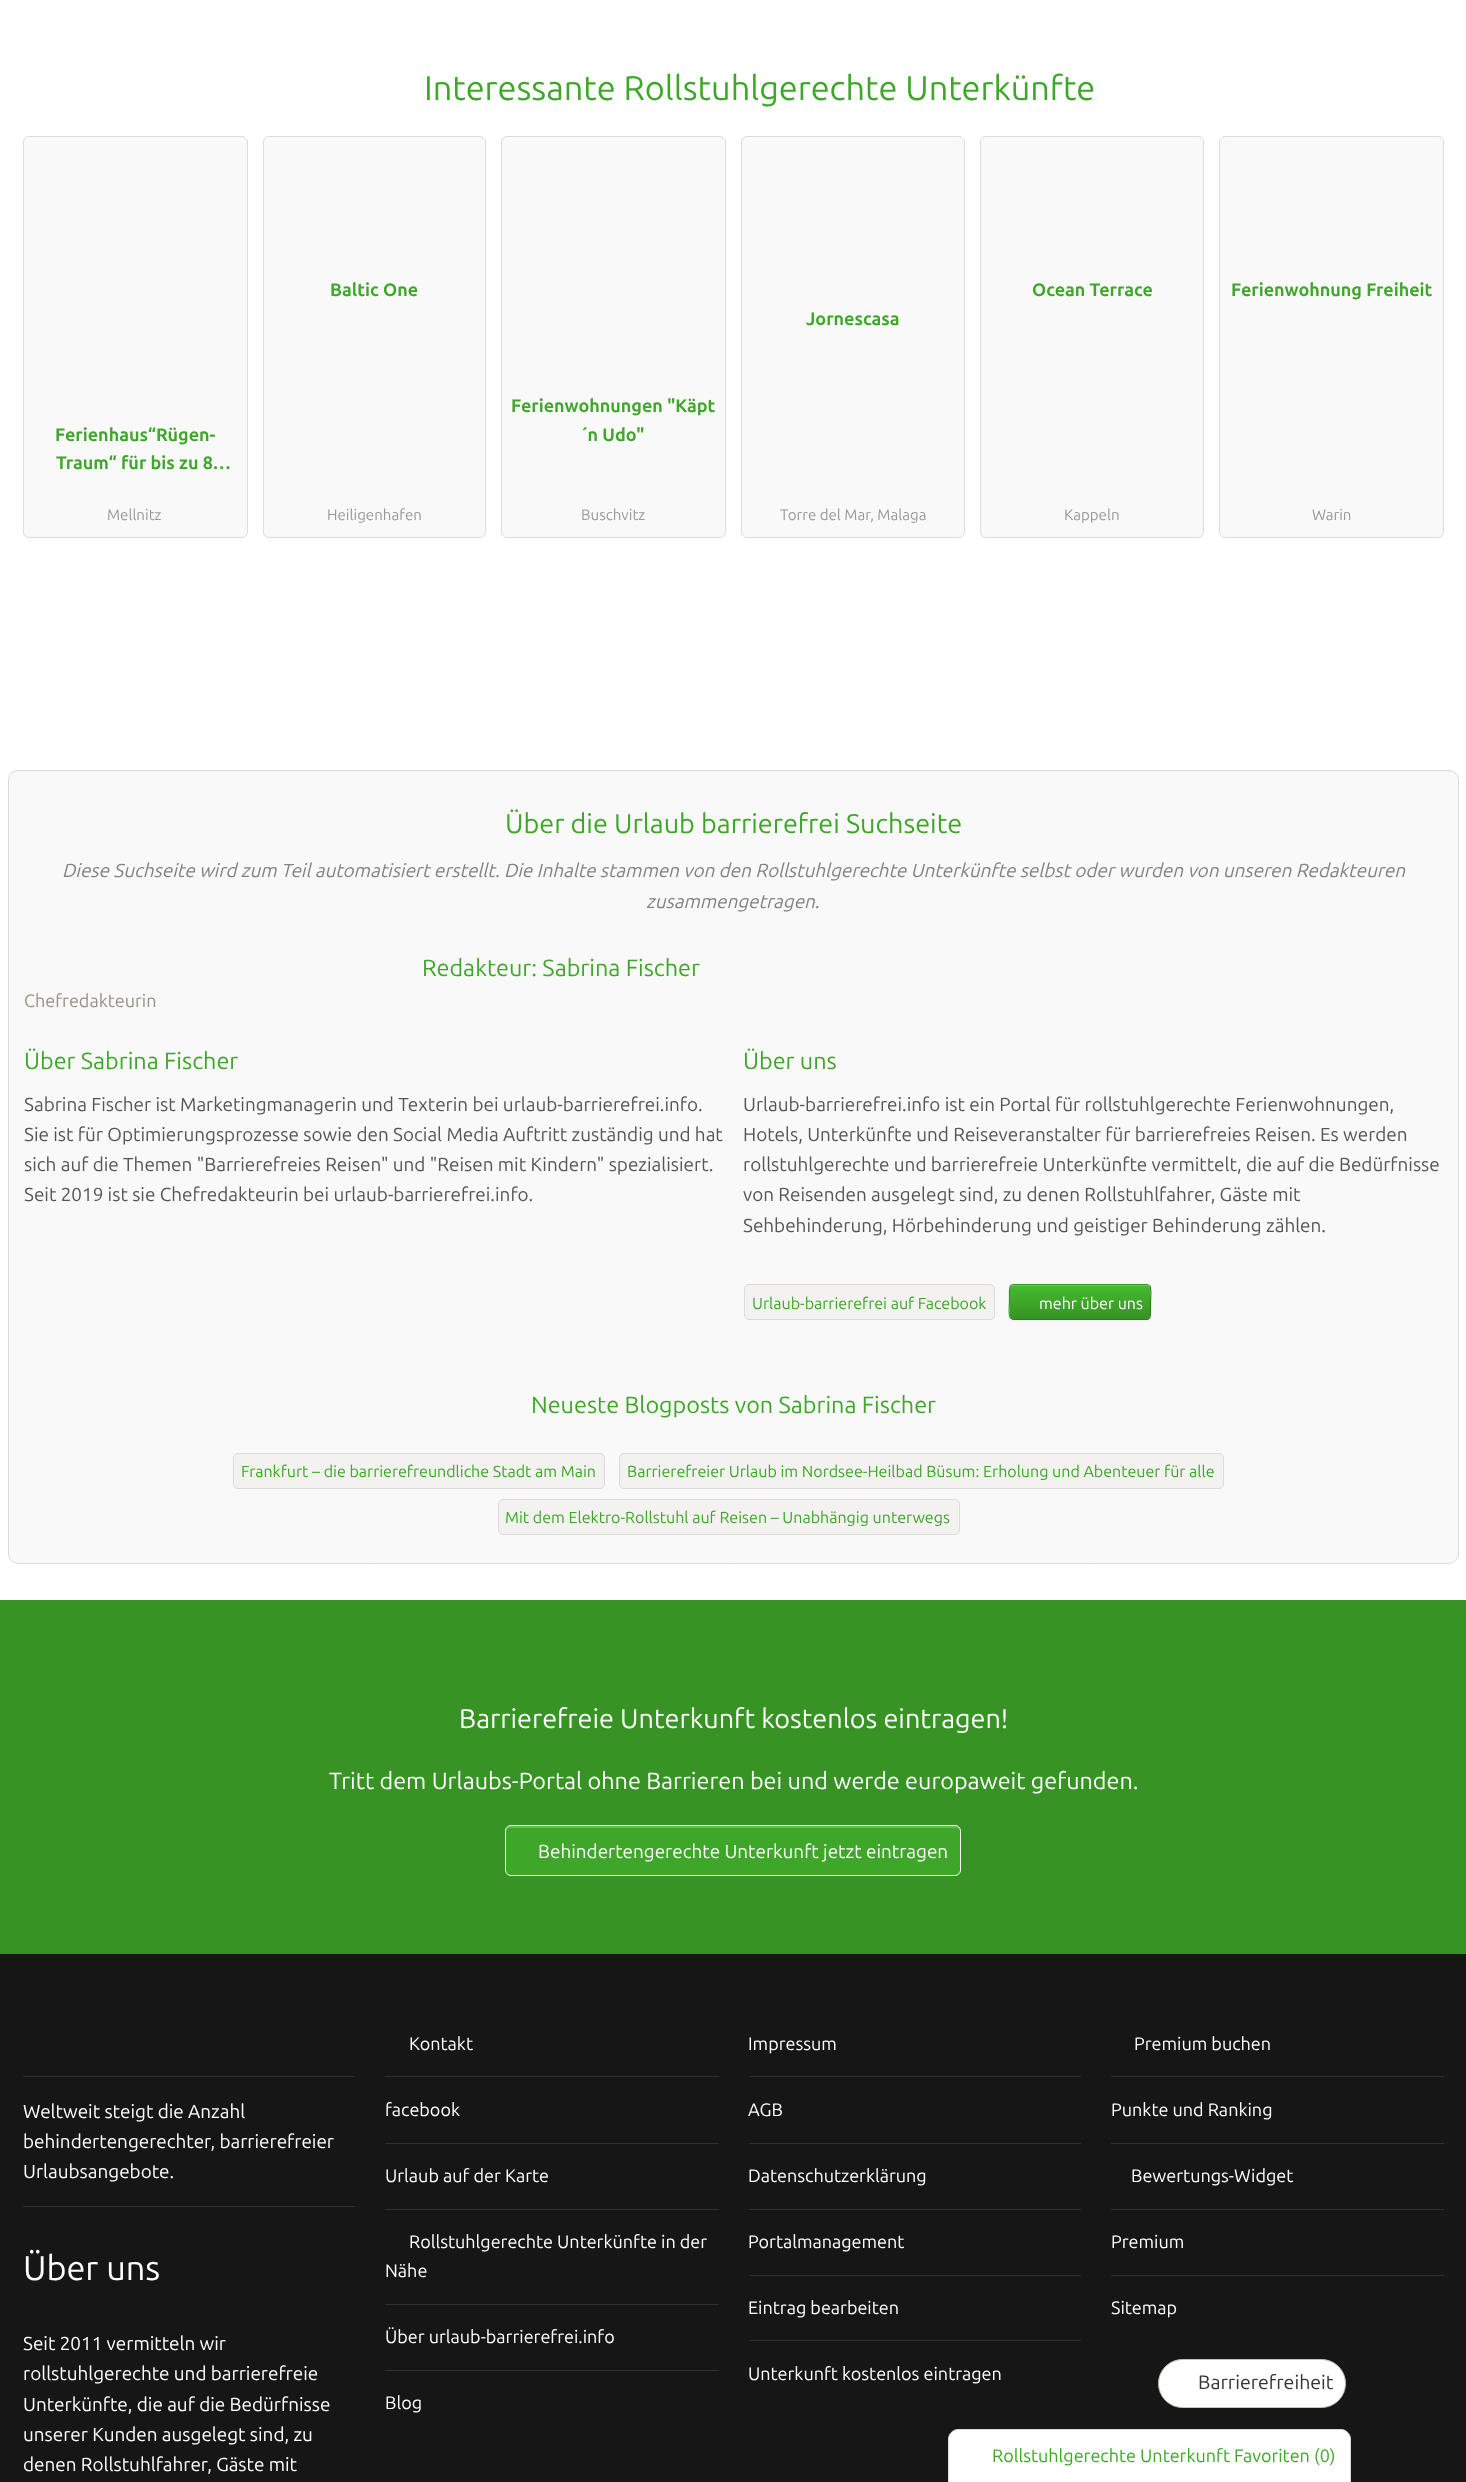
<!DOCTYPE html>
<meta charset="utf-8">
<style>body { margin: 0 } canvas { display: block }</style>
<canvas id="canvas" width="1466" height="2482"></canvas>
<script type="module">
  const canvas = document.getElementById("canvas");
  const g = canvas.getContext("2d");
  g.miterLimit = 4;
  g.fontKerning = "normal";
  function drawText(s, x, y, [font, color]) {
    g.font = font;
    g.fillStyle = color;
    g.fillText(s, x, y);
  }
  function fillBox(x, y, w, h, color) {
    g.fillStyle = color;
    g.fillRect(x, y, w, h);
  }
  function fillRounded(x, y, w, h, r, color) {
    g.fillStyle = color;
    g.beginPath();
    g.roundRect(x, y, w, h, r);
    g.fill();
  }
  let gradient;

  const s1 = ["34.25px Ubuntu", "#3EA729"];
  const s2 = ["bold 18px Ubuntu", "#3EA729"];
  const s3 = ["15.1px Ubuntu", "#999999"];
  const s4 = ["27px Ubuntu", "#3EA729"];
  const s5 = ["italic 18.9px Ubuntu", "#828282"];
  const s6 = ["23.4px Ubuntu", "#3EA729"];
  const s7 = ["18px Ubuntu", "#999083"];
  const s8 = ["18.9px Ubuntu", "#555555"];
  const s9 = ["16.05px Ubuntu", "#3EA729"];
  const s10 = ["16.05px Ubuntu", "#FFFFFF"];
  const s11 = ["18px Ubuntu", "#3EA729"];
  const s12 = ["27px Ubuntu", "#FFFFFF"];
  const s13 = ["23.4px Ubuntu", "#FFFFFF"];
  const s14 = ["18.9px Ubuntu", "#FFFFFF"];
  const s15 = ["34.25px Ubuntu", "#FFFFFF"];
  const s16 = ["18px Ubuntu", "#FFFFFF"];
  const s17 = ["19.5px Ubuntu", "#333333"];

  fillBox(0, 0, 1466, 2482, "#FFFFFF");
  drawText("Interessante Rollstuhlgerechte Unterkünfte", 424, 100, s1);
  g.fillStyle = "#F9F9F9";
  g.beginPath();
  g.roundRect(23.5, 136.5, 224, 401, 5.5);
  g.fill();
  g.strokeStyle = "#DDDDDD";
  g.stroke();
  drawText("Ferienhaus“Rügen-", 55, 441, s2);
  drawText("Traum“ für bis zu 8…", 56, 469, s2);
  drawText("Mellnitz", 107, 520, s3);
  g.fillStyle = "#F9F9F9";
  g.beginPath();
  g.roundRect(263.5, 136.5, 222, 401, 5.5);
  g.fill();
  g.stroke();
  drawText("Baltic One", 330, 296, s2);
  drawText("Heiligenhafen", 327, 520, s3);
  g.fillStyle = "#F9F9F9";
  g.beginPath();
  g.roundRect(501.5, 136.5, 224, 401, 5.5);
  g.fill();
  g.stroke();
  drawText("Ferienwohnungen \"Käpt", 511, 412, s2);
  drawText("´n Udo\"", 582, 441, s2);
  drawText("Buschvitz", 581, 520, s3);
  g.fillStyle = "#F9F9F9";
  g.beginPath();
  g.roundRect(741.5, 136.5, 223, 401, 5.5);
  g.fill();
  g.stroke();
  drawText("Jornescasa", 806, 325, s2);
  drawText("Torre del Mar, Malaga", 780, 520, s3);
  g.fillStyle = "#F9F9F9";
  g.beginPath();
  g.roundRect(980.5, 136.5, 223, 401, 5.5);
  g.fill();
  g.stroke();
  drawText("Ocean Terrace", 1032, 296, s2);
  drawText("Kappeln", 1064, 520, s3);
  g.fillStyle = "#F9F9F9";
  g.beginPath();
  g.roundRect(1219.5, 136.5, 224, 401, 5.5);
  g.fill();
  g.stroke();
  drawText("Ferienwohnung Freiheit", 1231, 296, s2);
  drawText("Warin", 1312, 520, s3);
  g.fillStyle = "#FAF9F9";
  g.beginPath();
  g.roundRect(8.5, 770.5, 1450, 793, 9.5);
  g.fill();
  g.strokeStyle = "#DEDBD7";
  g.stroke();
  drawText("Über die Urlaub barrierefrei Suchseite", 505, 833, s4);
  drawText("Diese Suchseite wird zum Teil automatisiert erstellt. Die Inhalte stammen von den Rollstuhlgerechte Unterkünfte selbst oder wurden von unseren Redakteuren", 62, 877, s5);
  drawText("zusammengetragen.", 646, 908, s5);
  drawText("Redakteur: Sabrina Fischer", 422, 976, s6);
  drawText("Chefredakteurin", 24, 1007, s7);
  drawText("Über Sabrina Fischer", 24, 1069, s6);
  drawText("Sabrina Fischer ist Marketingmanagerin und Texterin bei urlaub-barrierefrei.info.", 24, 1111, s8);
  drawText("Sie ist für Optimierungsprozesse sowie den Social Media Auftritt zuständig und hat", 24, 1141, s8);
  drawText("sich auf die Themen \"Barrierefreies Reisen\" und \"Reisen mit Kindern\" spezialisiert.", 24, 1171, s8);
  drawText("Seit 2019 ist sie Chefredakteurin bei urlaub-barrierefrei.info.", 24, 1201, s8);
  drawText("Über uns", 743, 1069, s6);
  drawText("Urlaub-barrierefrei.info ist ein Portal für rollstuhlgerechte Ferienwohnungen,", 743, 1111, s8);
  drawText("Hotels, Unterkünfte und Reiseveranstalter für barrierefreies Reisen. Es werden", 743, 1141, s8);
  drawText("rollstuhlgerechte und barrierefreie Unterkünfte vermittelt, die auf die Bedürfnisse", 743, 1171, s8);
  drawText("von Reisenden ausgelegt sind, zu denen Rollstuhlfahrer, Gäste mit", 743, 1201, s8);
  drawText("Sehbehinderung, Hörbehinderung und geistiger Behinderung zählen.", 743, 1232, s8);
  g.fillStyle = "#F3F2F0";
  g.beginPath();
  g.roundRect(744.5, 1284.5, 250, 35, 4.5);
  g.fill();
  g.stroke();
  drawText("Urlaub-barrierefrei auf Facebook", 752, 1309, s9);
  g.fillStyle = "rgba(0, 0, 0, 0.05)";
  g.filter = "blur(1px)";
  g.beginPath();
  g.roundRect(1009, 1285, 142, 36, 5);
  g.fill();
  g.filter = "none";
  gradient = g.createLinearGradient(1080, 1285, 1080, 1319);
  gradient.addColorStop(0, "#46BB2E");
  gradient.addColorStop(1, "#369324");
  g.fillStyle = gradient;
  g.beginPath();
  g.roundRect(1010, 1285, 140, 34, 4);
  g.fill();
  g.fillStyle = "rgba(255, 255, 255, 0.2)";
  g.beginPath();
  g.moveTo(1014, 1286);
  g.lineTo(1146, 1286);
  g.bezierCurveTo(1148, 1286, 1150, 1288, 1150, 1290);
  g.lineTo(1150, 1289);
  g.bezierCurveTo(1150, 1287, 1148, 1285, 1146, 1285);
  g.lineTo(1014, 1285);
  g.bezierCurveTo(1012, 1285, 1010, 1287, 1010, 1289);
  g.lineTo(1010, 1290);
  g.bezierCurveTo(1010, 1288, 1012, 1286, 1014, 1286);
  g.closePath();
  g.fill();
  g.beginPath();
  g.moveTo(1149.5, 1285.5);
  g.bezierCurveTo(1152, 1288, 1150.5, 1298.5, 1150.5, 1302);
  g.lineTo(1150.5, 1310.5);
  g.bezierCurveTo(1150.5, 1314, 1151, 1319.5, 1146.5, 1319.5);
  g.lineTo(1013, 1319.5);
  g.lineTo(1010.5, 1318);
  g.strokeStyle = "#2F7E1F";
  g.lineWidth = 1.2;
  g.stroke();
  g.beginPath();
  g.moveTo(1010.5, 1318);
  g.bezierCurveTo(1008, 1315.5, 1009.5, 1305, 1009.5, 1302);
  g.lineTo(1009.5, 1293);
  g.bezierCurveTo(1009.5, 1290, 1009, 1284.5, 1013.5, 1284.5);
  g.lineTo(1147, 1284.5);
  g.lineTo(1149.5, 1285.5);
  g.strokeStyle = "#369324";
  g.stroke();
  drawText("mehr über uns", 1039, 1309, s10);
  drawText("Neueste Blogposts von Sabrina Fischer", 531, 1413, s6);
  g.fillStyle = "#F3F2F0";
  g.beginPath();
  g.roundRect(233.5, 1453.5, 371, 35, 4.5);
  g.fill();
  g.strokeStyle = "#DEDBD7";
  g.lineWidth = 1;
  g.stroke();
  drawText("Frankfurt – die barrierefreundliche Stadt am Main", 241, 1477, s9);
  g.fillStyle = "#F3F2F0";
  g.beginPath();
  g.roundRect(619.5, 1453.5, 604, 35, 4.5);
  g.fill();
  g.stroke();
  drawText("Barrierefreier Urlaub im Nordsee-Heilbad Büsum: Erholung und Abenteuer für alle", 627, 1477, s9);
  g.fillStyle = "#F3F2F0";
  g.beginPath();
  g.roundRect(498.5, 1499.5, 461, 35, 4.5);
  g.fill();
  g.stroke();
  drawText("Mit dem Elektro-Rollstuhl auf Reisen – Unabhängig unterwegs", 505, 1523, s9);
  fillBox(0, 1954, 1466, 528, "#161616");
  g.fillStyle = "#FFFFFF";
  g.beginPath();
  g.moveTo(958, 2429.5);
  g.lineTo(1341, 2429.5);
  g.bezierCurveTo(1346, 2429.5, 1350.5, 2434, 1350.5, 2439);
  g.lineTo(1350.5, 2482.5);
  g.lineTo(948.5, 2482.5);
  g.lineTo(948.5, 2439);
  g.bezierCurveTo(948.5, 2434, 953, 2429.5, 958, 2429.5);
  g.closePath();
  g.fill();
  g.stroke();
  drawText("Rollstuhlgerechte Unterkunft Favoriten (0)", 992, 2462, s11);
  fillBox(0, 1600, 1466, 354, "#369324");
  drawText("Barrierefreie Unterkunft kostenlos eintragen!", 459, 1728, s12);
  drawText("Tritt dem Urlaubs-Portal ohne Barrieren bei und werde europaweit gefunden.", 329, 1789, s13);
  fillRounded(506, 1826, 454, 49, 5, "#3EA729");
  g.fillStyle = "#65B954";
  g.beginPath();
  g.moveTo(511, 1828);
  g.lineTo(956, 1828);
  g.bezierCurveTo(958, 1828, 960, 1829, 960, 1832);
  g.bezierCurveTo(960, 1829, 958, 1826, 955, 1826);
  g.lineTo(511, 1826);
  g.bezierCurveTo(508, 1826, 506, 1829, 506, 1832);
  g.bezierCurveTo(506, 1829, 508, 1828, 511, 1828);
  g.closePath();
  g.fill();
  g.beginPath();
  g.roundRect(505.5, 1825.5, 455, 50, 5.5);
  g.strokeStyle = "#FFFFFF";
  g.stroke();
  drawText("Behindertengerechte Unterkunft jetzt eintragen", 538, 1858, s14);
  fillBox(23, 2076, 332, 1, "#302F2F");
  fillBox(23, 2206, 332, 1, "#302F2F");
  drawText("Weltweit steigt die Anzahl", 23, 2118, s14);
  drawText("behindertengerechter, barrierefreier", 23, 2148, s14);
  drawText("Urlaubsangebote.", 23, 2178, s14);
  drawText("Über uns", 23, 2280, s15);
  drawText("Seit 2011 vermitteln wir", 23, 2350, s14);
  drawText("rollstuhlgerechte und barrierefreie", 23, 2380, s14);
  drawText("Unterkünfte, die auf die Bedürfnisse", 23, 2411, s14);
  drawText("unserer Kunden ausgelegt sind, zu", 23, 2441, s14);
  drawText("denen Rollstuhlfahrer, Gäste mit", 23, 2471, s14);
  fillBox(385, 2076, 334, 1, "#302F2F");
  drawText("Kontakt", 409, 2050, s16);
  fillBox(385, 2143, 334, 1, "#302F2F");
  drawText("facebook", 385, 2116, s16);
  fillBox(385, 2209, 334, 1, "#302F2F");
  drawText("Urlaub auf der Karte", 385, 2182, s16);
  fillBox(385, 2304, 334, 1, "#302F2F");
  drawText("Rollstuhlgerechte Unterkünfte in der", 409, 2248, s16);
  drawText("Nähe", 385, 2277, s16);
  fillBox(385, 2370, 334, 1, "#302F2F");
  drawText("Über urlaub-barrierefrei.info", 385, 2343, s16);
  drawText("Blog", 385, 2409, s16);
  fillBox(749, 2076, 332, 1, "#302F2F");
  drawText("Impressum", 748, 2050, s16);
  fillBox(749, 2143, 332, 1, "#302F2F");
  drawText("AGB", 748, 2116, s16);
  fillBox(749, 2209, 332, 1, "#302F2F");
  drawText("Datenschutzerklärung", 748, 2182, s16);
  fillBox(749, 2275, 332, 1, "#302F2F");
  drawText("Portalmanagement", 748, 2248, s16);
  fillBox(749, 2340, 332, 1, "#302F2F");
  drawText("Eintrag bearbeiten", 748, 2314, s16);
  drawText("Unterkunft kostenlos eintragen", 748, 2380, s16);
  fillBox(1111, 2076, 333, 1, "#302F2F");
  drawText("Premium buchen", 1134, 2050, s16);
  fillBox(1111, 2143, 333, 1, "#302F2F");
  drawText("Punkte und Ranking", 1111, 2116, s16);
  fillBox(1111, 2209, 333, 1, "#302F2F");
  drawText("Bewertungs-Widget", 1131, 2182, s16);
  fillBox(1111, 2275, 333, 1, "#302F2F");
  drawText("Premium", 1111, 2248, s16);
  drawText("Sitemap", 1111, 2314, s16);
  g.beginPath();
  g.roundRect(1158.5, 2359.5, 187, 48, 24);
  g.fill();
  g.strokeStyle = "#C7C2BB";
  g.stroke();
  drawText("Barrierefreiheit", 1198, 2389, s17);
</script>
